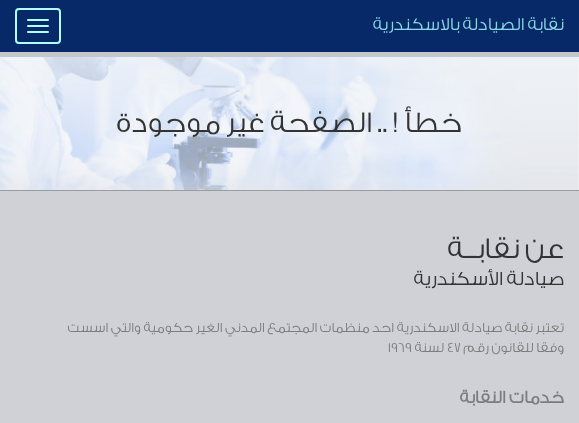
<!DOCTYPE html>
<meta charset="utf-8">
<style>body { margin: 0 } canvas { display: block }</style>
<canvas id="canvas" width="579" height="423"></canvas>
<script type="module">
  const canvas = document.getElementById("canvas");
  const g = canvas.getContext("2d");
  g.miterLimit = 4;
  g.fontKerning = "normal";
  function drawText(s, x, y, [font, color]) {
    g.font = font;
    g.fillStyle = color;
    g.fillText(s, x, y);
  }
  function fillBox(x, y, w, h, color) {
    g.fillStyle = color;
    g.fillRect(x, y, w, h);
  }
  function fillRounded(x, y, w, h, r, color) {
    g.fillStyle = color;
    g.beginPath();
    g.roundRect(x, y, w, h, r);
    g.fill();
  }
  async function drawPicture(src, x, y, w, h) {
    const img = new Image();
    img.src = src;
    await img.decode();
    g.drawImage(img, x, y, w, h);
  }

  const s1 = ["300 18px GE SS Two", "#8AD8E6"];
  const s2 = ["300 30px GE SS Two", "#333333"];
  const s3 = ["300 20px GE SS Two", "#333333"];
  const s4 = ["300 14px GE SS Two", "#7D7D7D"];
  const s5 = ["bold 18px GE SS Two", "#7D7D7D"];

  fillBox(0, 0, 579, 423, "#FFFFFF");
  fillBox(0, 0, 579, 52, "#072968");
  fillBox(0, 52, 579, 5, "#C4C7CC");
  g.direction = "rtl";
  drawText("نقابة الصيادلة بالاسكندرية", 564, 30, s1);
  g.beginPath();
  g.roundRect(16, 9, 44, 34, 3);
  g.strokeStyle = "#B0FEFF";
  g.lineWidth = 2;
  g.stroke();
  fillRounded(27, 19, 22, 2, 1, "#B0FEFF");
  fillRounded(27, 25, 22, 2, 1, "#B0FEFF");
  fillRounded(27, 31, 22, 2, 1, "#B0FEFF");
  await drawPicture("pic1.png", 0, 57, 579, 133);
  drawText("خطأ ! .. الصفحة غير موجودة", 462, 132, s2);
  fillBox(0, 191, 579, 232, "#CFD1D7");
  fillBox(0, 190, 579, 1, "#9C9DA0");
  drawText("عن نقابــة", 564, 258, s2);
  drawText("صيادلة الأسكندرية", 564, 285, s3);
  drawText("تعتبر نقابة صيادلة الاسكندرية", 564, 332, s4);
  drawText("احد منظمات المجتمع المدني الغير حكومية والتي اسست", 394, 332, s4);
  drawText("وفقا للقانون رقم", 564, 352, s4);
  g.direction = "ltr";
  drawText("47", 447, 352, s4);
  g.direction = "rtl";
  drawText("لسنة", 444, 352, s4);
  g.direction = "ltr";
  drawText("1969", 388, 352, s4);
  g.direction = "rtl";
  drawText("خدمات النقابة", 564, 403, s5);
</script>
